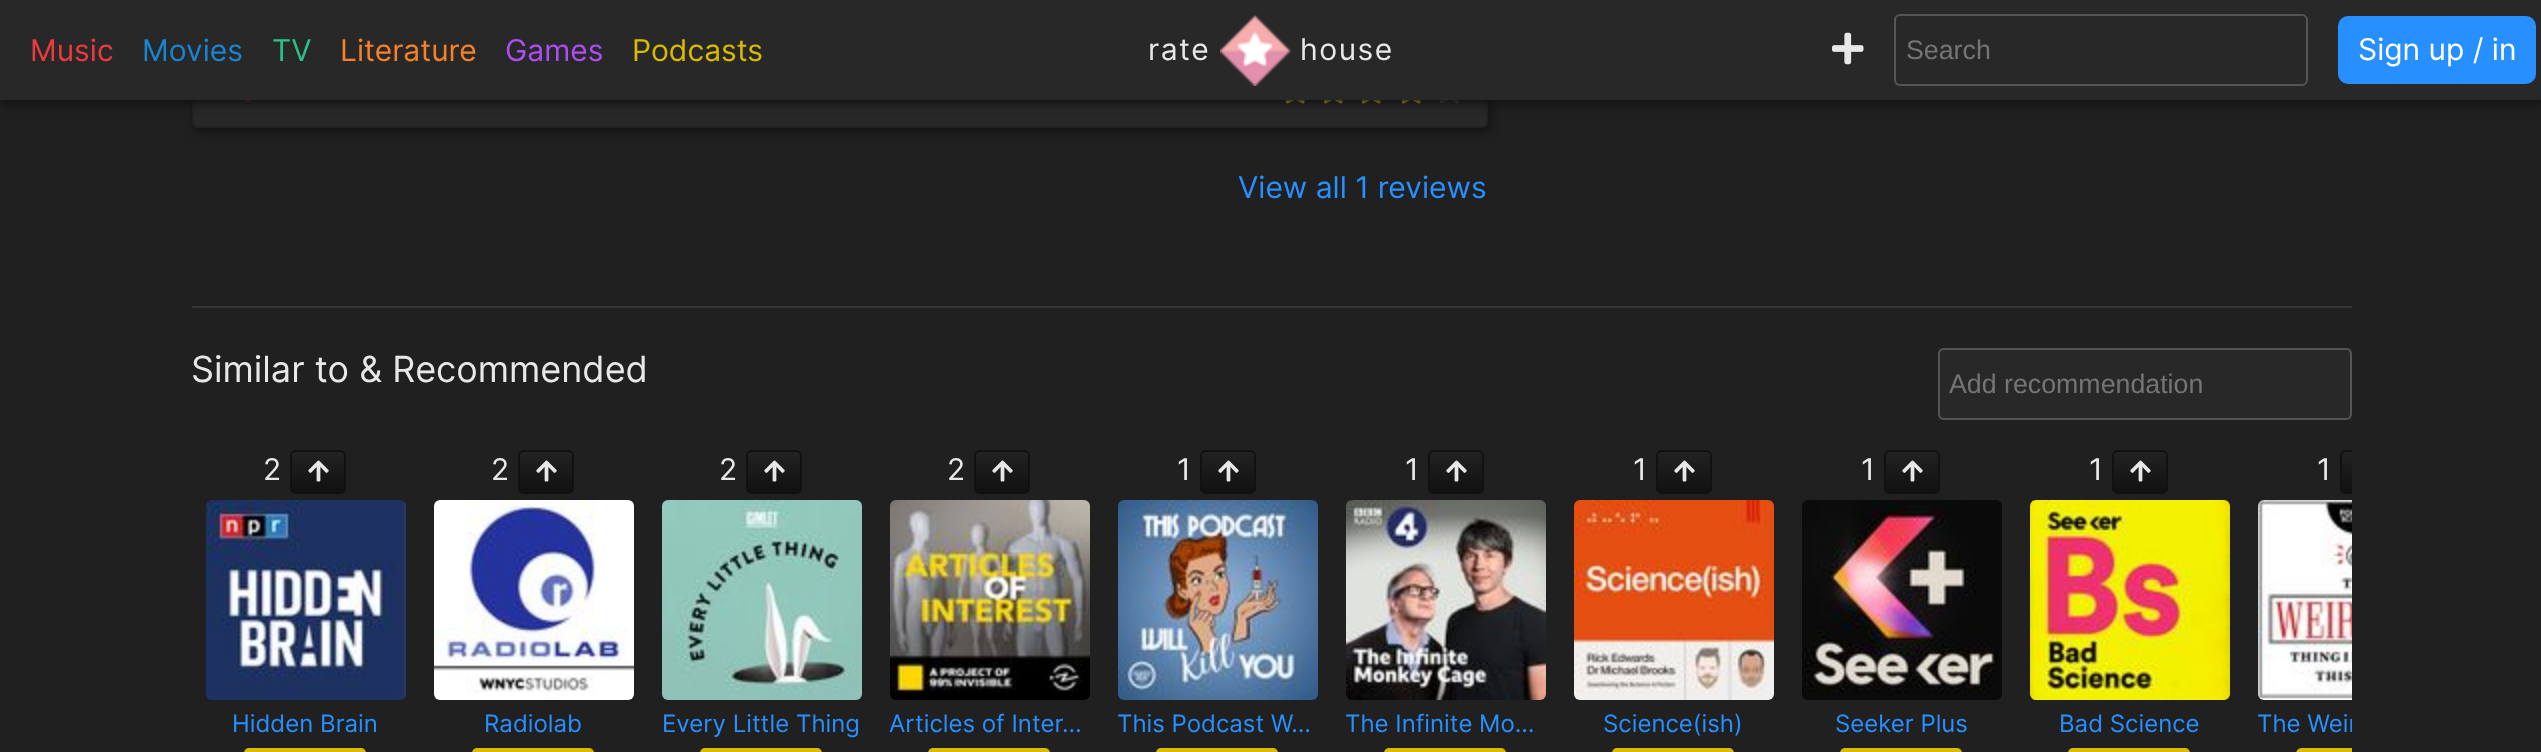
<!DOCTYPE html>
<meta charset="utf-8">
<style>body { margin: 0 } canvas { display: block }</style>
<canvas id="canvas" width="2541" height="752"></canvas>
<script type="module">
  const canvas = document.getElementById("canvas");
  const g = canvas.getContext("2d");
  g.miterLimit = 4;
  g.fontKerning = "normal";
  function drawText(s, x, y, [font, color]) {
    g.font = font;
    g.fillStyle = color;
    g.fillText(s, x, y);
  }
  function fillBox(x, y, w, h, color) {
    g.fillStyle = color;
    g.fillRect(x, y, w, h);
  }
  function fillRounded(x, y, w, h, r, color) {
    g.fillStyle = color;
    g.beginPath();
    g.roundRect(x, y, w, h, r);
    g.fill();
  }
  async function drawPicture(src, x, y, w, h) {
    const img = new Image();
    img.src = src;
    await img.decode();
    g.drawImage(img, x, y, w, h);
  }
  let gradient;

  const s1 = ["30px Inter", "#EC3B40"];
  const s2 = ["30px Inter", "#1785D0"];
  const s3 = ["30px Inter", "#28C388"];
  const s4 = ["30px Inter", "#F58128"];
  const s5 = ["30px Inter", "#AC4EF3"];
  const s6 = ["30px Inter", "#DABB00"];
  const s7 = ["30px Inter", "#E8E8E8"];
  const s8 = ["26.75px Liberation Sans", "#757575"];
  const s9 = ["30px Inter", "#FFFFFF"];
  const s10 = ["30px Inter", "#288FFF"];
  const s11 = ["36px Inter", "#E8E8E8"];
  const s12 = ["24px Inter", "#288FFF"];

  fillBox(0, 0, 2541, 752, "#202020");
  g.fillStyle = "#111111";
  g.filter = "blur(5px)";
  g.beginPath();
  g.roundRect(194, -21, 1296, 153, 6);
  g.fill();
  g.filter = "none";
  g.fillStyle = "#282828";
  g.beginPath();
  g.roundRect(193, -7, 1294, 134, 5);
  g.fill();
  g.strokeStyle = "#222222";
  g.lineWidth = 2;
  g.stroke();
  await drawPicture("pic3.png", 245, 100, 6, 2);
  await drawPicture("pic4.png", 1285, 100, 20, 4);
  await drawPicture("pic4.png", 1323, 100, 20, 4);
  await drawPicture("pic4.png", 1361, 100, 20, 4);
  await drawPicture("pic4.png", 1401, 100, 20, 4);
  await drawPicture("pic4.png", 1439, 100, 20, 4);
  await drawPicture("pic5.png", 1285, 100, 20, 4);
  await drawPicture("pic5.png", 1323, 100, 20, 4);
  await drawPicture("pic5.png", 1361, 100, 20, 4);
  await drawPicture("pic5.png", 1401, 100, 20, 4);
  g.fillStyle = "#111111";
  g.filter = "blur(5px)";
  g.beginPath();
  g.rect(2, 4, 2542, 100);
  g.fill();
  g.filter = "none";
  fillBox(0, 0, 2541, 100, "#282828");
  drawText("Music", 30, 61, s1);
  drawText("Movies", 142, 61, s2);
  drawText("TV", 272, 61, s3);
  drawText("Literature", 340, 61, s4);
  drawText("Games", 505, 61, s5);
  drawText("Podcasts", 632, 61, s6);
  g.letterSpacing = "1.5px";
  drawText("rate", 1148, 60, s7);
  await drawPicture("pic1.png", 1220, 15, 71, 71);
  drawText("house", 1300, 60, s7);
  await drawPicture("pic2.png", 1832, 32, 32, 33);
  g.beginPath();
  g.roundRect(1895, 15, 412, 70, 5);
  g.strokeStyle = "#555555";
  g.stroke();
  g.letterSpacing = "0px";
  drawText("Search", 1906, 59, s8);
  fillRounded(2338, 16, 198, 68, 10, "#288FFF");
  drawText("Sign up / in", 2358, 60, s9);
  drawText("View all 1 reviews", 1238, 198, s10);
  fillBox(192, 306, 2160, 2, "#353535");
  drawText("Similar to & Recommended", 191, 382, s11);
  fillBox(1938, 348, 414, 72, "#282828");
  g.beginPath();
  g.roundRect(1939, 349, 412, 70, 5);
  g.stroke();
  drawText("Add recommendation", 1949, 393, s8);
  drawText("2", 263, 480, s7);
  g.save();
  g.beginPath();
  g.roundRect(290, 450, 56, 44, 6);
  g.clip();
  gradient = g.createLinearGradient(318, 452, 318, 492);
  gradient.addColorStop(0, "#222222");
  gradient.addColorStop(1, "#111111");
  g.fillStyle = gradient;
  g.fillRect(290, 452, 56, 40);
  g.restore();
  g.beginPath();
  g.roundRect(291, 451, 54, 42, 5);
  g.strokeStyle = "#111111";
  g.stroke();
  await drawPicture("pic6.png", 308, 460, 21, 22);
  await drawPicture("pic7.png", 206, 500, 200, 200);
  drawText("Hidden Brain", 232, 732, s12);
  fillRounded(244, 748, 122, 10, 6, "#DABB00");
  drawText("2", 491, 480, s7);
  g.save();
  g.beginPath();
  g.roundRect(518, 450, 56, 44, 6);
  g.clip();
  gradient = g.createLinearGradient(546, 452, 546, 492);
  gradient.addColorStop(0, "#222222");
  gradient.addColorStop(1, "#111111");
  g.fillStyle = gradient;
  g.fillRect(518, 452, 56, 40);
  g.restore();
  g.beginPath();
  g.roundRect(519, 451, 54, 42, 5);
  g.stroke();
  await drawPicture("pic6.png", 536, 460, 21, 22);
  await drawPicture("pic8.png", 434, 500, 200, 200);
  drawText("Radiolab", 484, 732, s12);
  fillRounded(472, 748, 122, 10, 6, "#DABB00");
  drawText("2", 719, 480, s7);
  g.save();
  g.beginPath();
  g.roundRect(746, 450, 56, 44, 6);
  g.clip();
  gradient = g.createLinearGradient(774, 452, 774, 492);
  gradient.addColorStop(0, "#222222");
  gradient.addColorStop(1, "#111111");
  g.fillStyle = gradient;
  g.fillRect(746, 452, 56, 40);
  g.restore();
  g.beginPath();
  g.roundRect(747, 451, 54, 42, 5);
  g.stroke();
  await drawPicture("pic6.png", 764, 460, 21, 22);
  await drawPicture("pic9.png", 662, 500, 200, 200);
  drawText("Every Little Thing", 662, 732, s12);
  fillRounded(700, 748, 122, 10, 6, "#DABB00");
  drawText("2", 947, 480, s7);
  g.save();
  g.beginPath();
  g.roundRect(974, 450, 56, 44, 6);
  g.clip();
  gradient = g.createLinearGradient(1002, 452, 1002, 492);
  gradient.addColorStop(0, "#222222");
  gradient.addColorStop(1, "#111111");
  g.fillStyle = gradient;
  g.fillRect(974, 452, 56, 40);
  g.restore();
  g.beginPath();
  g.roundRect(975, 451, 54, 42, 5);
  g.stroke();
  await drawPicture("pic6.png", 992, 460, 21, 22);
  await drawPicture("pic10.png", 890, 500, 200, 200);
  drawText("Articles of Inter…", 889, 732, s12);
  fillRounded(928, 748, 122, 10, 6, "#DABB00");
  drawText("1", 1177, 480, s7);
  g.save();
  g.beginPath();
  g.roundRect(1200, 450, 56, 44, 6);
  g.clip();
  gradient = g.createLinearGradient(1228, 452, 1228, 492);
  gradient.addColorStop(0, "#222222");
  gradient.addColorStop(1, "#111111");
  g.fillStyle = gradient;
  g.fillRect(1200, 452, 56, 40);
  g.restore();
  g.beginPath();
  g.roundRect(1201, 451, 54, 42, 5);
  g.stroke();
  await drawPicture("pic6.png", 1218, 460, 21, 22);
  await drawPicture("pic11.png", 1118, 500, 200, 200);
  drawText("This Podcast W…", 1117, 732, s12);
  fillRounded(1156, 748, 122, 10, 6, "#DABB00");
  drawText("1", 1405, 480, s7);
  g.save();
  g.beginPath();
  g.roundRect(1428, 450, 56, 44, 6);
  g.clip();
  gradient = g.createLinearGradient(1456, 452, 1456, 492);
  gradient.addColorStop(0, "#222222");
  gradient.addColorStop(1, "#111111");
  g.fillStyle = gradient;
  g.fillRect(1428, 452, 56, 40);
  g.restore();
  g.beginPath();
  g.roundRect(1429, 451, 54, 42, 5);
  g.stroke();
  await drawPicture("pic6.png", 1446, 460, 21, 22);
  await drawPicture("pic12.png", 1346, 500, 200, 200);
  drawText("The Infinite Mo…", 1345, 732, s12);
  fillRounded(1384, 748, 122, 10, 6, "#DABB00");
  drawText("1", 1633, 480, s7);
  g.save();
  g.beginPath();
  g.roundRect(1656, 450, 56, 44, 6);
  g.clip();
  gradient = g.createLinearGradient(1684, 452, 1684, 492);
  gradient.addColorStop(0, "#222222");
  gradient.addColorStop(1, "#111111");
  g.fillStyle = gradient;
  g.fillRect(1656, 452, 56, 40);
  g.restore();
  g.beginPath();
  g.roundRect(1657, 451, 54, 42, 5);
  g.stroke();
  await drawPicture("pic6.png", 1674, 460, 21, 22);
  await drawPicture("pic13.png", 1574, 500, 200, 200);
  drawText("Science(ish)", 1603, 732, s12);
  fillRounded(1612, 748, 122, 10, 6, "#DABB00");
  drawText("1", 1861, 480, s7);
  g.save();
  g.beginPath();
  g.roundRect(1884, 450, 56, 44, 6);
  g.clip();
  gradient = g.createLinearGradient(1912, 452, 1912, 492);
  gradient.addColorStop(0, "#222222");
  gradient.addColorStop(1, "#111111");
  g.fillStyle = gradient;
  g.fillRect(1884, 452, 56, 40);
  g.restore();
  g.beginPath();
  g.roundRect(1885, 451, 54, 42, 5);
  g.stroke();
  await drawPicture("pic6.png", 1902, 460, 21, 22);
  await drawPicture("pic14.png", 1802, 500, 200, 200);
  drawText("Seeker Plus", 1835, 732, s12);
  fillRounded(1840, 748, 122, 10, 6, "#DABB00");
  drawText("1", 2089, 480, s7);
  g.save();
  g.beginPath();
  g.roundRect(2112, 450, 56, 44, 6);
  g.clip();
  gradient = g.createLinearGradient(2140, 452, 2140, 492);
  gradient.addColorStop(0, "#222222");
  gradient.addColorStop(1, "#111111");
  g.fillStyle = gradient;
  g.fillRect(2112, 452, 56, 40);
  g.restore();
  g.beginPath();
  g.roundRect(2113, 451, 54, 42, 5);
  g.stroke();
  await drawPicture("pic6.png", 2130, 460, 21, 22);
  await drawPicture("pic15.png", 2030, 500, 200, 200);
  drawText("Bad Science", 2059, 732, s12);
  fillRounded(2068, 748, 122, 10, 6, "#DABB00");
  drawText("1", 2317, 480, s7);
  g.save();
  g.beginPath();
  g.roundRect(2340, 450, 56, 44, 6);
  g.clip();
  gradient = g.createLinearGradient(2368, 452, 2368, 492);
  gradient.addColorStop(0, "#222222");
  gradient.addColorStop(1, "#111111");
  g.fillStyle = gradient;
  g.fillRect(2340, 452, 12, 40);
  g.restore();
  g.save();
  g.beginPath();
  g.rect(192, 430, 2160, 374);
  g.clip();
  g.beginPath();
  g.roundRect(2341, 451, 54, 42, 5);
  g.stroke();
  g.restore();
  await drawPicture("pic16.png", 2258, 500, 94, 200);
  g.save();
  g.beginPath();
  g.rect(2258, 708, 94, 30);
  g.clip();
  drawText("The Weir", 2257, 732, s12);
  g.restore();
  g.fillStyle = "#DABB00";
  g.beginPath();
  g.moveTo(2302, 748);
  g.lineTo(2352, 748);
  g.lineTo(2352, 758);
  g.lineTo(2302, 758);
  g.bezierCurveTo(2298.5, 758, 2296, 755.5, 2296, 752);
  g.lineTo(2296, 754);
  g.bezierCurveTo(2296, 750.5, 2298.5, 748, 2302, 748);
  g.closePath();
  g.fill();
</script>
